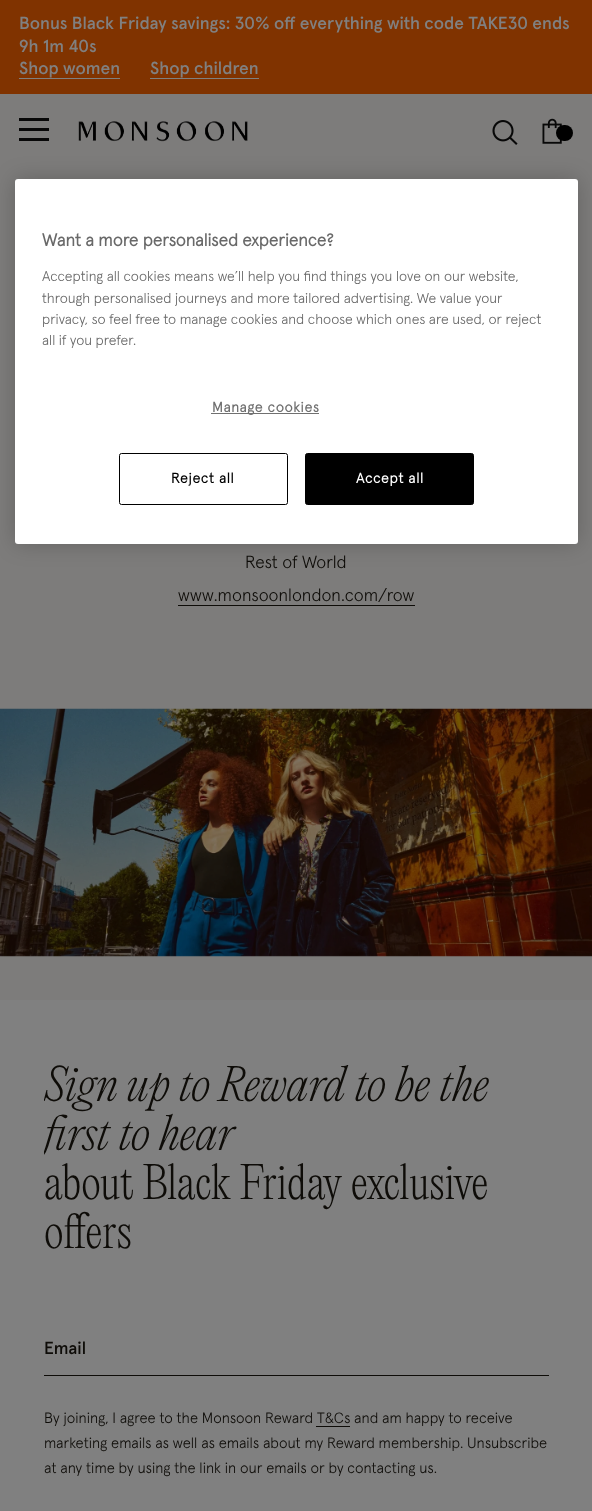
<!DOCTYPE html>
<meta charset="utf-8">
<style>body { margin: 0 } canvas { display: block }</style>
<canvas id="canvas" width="592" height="1511"></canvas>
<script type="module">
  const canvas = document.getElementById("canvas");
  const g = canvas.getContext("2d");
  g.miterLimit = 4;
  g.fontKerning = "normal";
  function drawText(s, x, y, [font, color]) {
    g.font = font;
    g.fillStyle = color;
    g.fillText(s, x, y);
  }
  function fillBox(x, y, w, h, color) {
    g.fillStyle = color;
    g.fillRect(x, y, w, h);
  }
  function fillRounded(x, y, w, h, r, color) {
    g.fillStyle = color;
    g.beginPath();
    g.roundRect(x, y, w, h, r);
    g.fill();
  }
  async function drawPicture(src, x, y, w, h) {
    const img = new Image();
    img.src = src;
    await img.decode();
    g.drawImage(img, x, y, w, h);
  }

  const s1 = ["500 17.5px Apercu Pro", "#808080"];
  const s2 = ["300 17.5px Apercu Pro", "#0E0C08"];
  const s3 = ["italic 200 43.75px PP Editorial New", "#0E0C08"];
  const s4 = ["200 43.75px PP Editorial New", "#0E0C08"];
  const s5 = ["500 17.5px Apercu Pro", "#0E0C08"];
  const s6 = ["300 15px Apercu Pro", "#0E0C08"];
  const s7 = ["bold 17.5px Apercu Pro", "#696969"];
  const s8 = ["300 14.25px Apercu Pro", "#696969"];
  const s9 = ["bold 14.25px Apercu Pro", "#707070"];
  const s10 = ["bold 14.25px Apercu Pro", "#000000"];
  const s11 = ["bold 14.25px Apercu Pro", "#FFFFFF"];

  fillBox(0, 0, 592, 1511, "#7D7C7B");
  fillBox(0, 0, 592, 94, "#803300");
  drawText("Bonus Black F", 19, 29, s1);
  drawText("riday savings: 30% off everything with code TAKE30 ends", 128, 29, s1);
  drawText("9h 1m 40s", 19, 52, s1);
  drawText("Shop women", 19, 74, s1);
  fillBox(19, 78, 101, 1, "#808080");
  drawText("Shop children", 150, 74, s1);
  fillBox(150, 78, 109, 1, "#808080");
  fillBox(19, 118, 30, 3, "#080808");
  fillBox(19, 128, 30, 3, "#080808");
  fillBox(19, 138, 30, 3, "#080808");
  await drawPicture("pic1.png", 78, 121, 170, 21);
  await drawPicture("pic2.png", 492, 120, 26, 25);
  await drawPicture("pic3.png", 542, 118, 20, 26);
  fillRounded(556, 125, 17, 16, 8, "#000000");
  drawText("Rest of World", 245, 568, s2);
  drawText("www.monsoonlondon.com/row", 178, 601, s2);
  fillBox(178, 605, 237, 1, "#0E0C08");
  await drawPicture("pic4.png", 0, 708, 592, 249);
  fillBox(0, 1000, 592, 511, "#808080");
  g.save();
  g.beginPath();
  g.rect(44, 1065, 505, 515);
  g.clip();
  drawText("Sign up to Reward to be the", 44, 1101, s3);
  drawText("first to hear", 44, 1150, s3);
  g.restore();
  drawText("about Black Friday exclusive", 44, 1199, s4);
  drawText("offers", 44, 1248, s4);
  fillBox(44, 1375, 505, 1, "#0E0C08");
  drawText("Email", 44, 1354, s5);
  drawText("By joining, I agree to the Monsoon Reward T&Cs and am happy to receive", 44, 1423, s6);
  fillBox(316, 1426, 34, 1, "#0E0C08");
  drawText("marketing emails as well as emails about my Reward membership. Unsubscribe", 44, 1448, s6);
  drawText("at any time by using the link in our emails or by contacting us.", 44, 1473, s6);
  g.fillStyle = "rgba(0, 0, 0, 0.2)";
  g.filter = "blur(11px)";
  g.beginPath();
  g.roundRect(15, 179, 563, 365, 3);
  g.fill();
  g.filter = "none";
  fillRounded(15, 179, 563, 365, 3, "#FFFFFF");
  drawText("Want a more personalised experience?", 42, 246, s7);
  drawText("Accepting all cookies means we’ll help you find things you love on our website,", 42, 281, s8);
  drawText("through personalised journeys and more tailored advertising. We value your", 42, 303, s8);
  drawText("privacy, so feel free to manage cookies and choose which ones are used, or reject", 42, 324, s8);
  drawText("all if you prefer.", 42, 345, s8);
  fillBox(211, 413, 108, 1, "#707070");
  g.letterSpacing = "0.75px";
  drawText("Manage cookies", 212, 412, s9);
  g.beginPath();
  g.roundRect(119.5, 453.5, 168, 51, 2);
  g.strokeStyle = "#000000";
  g.stroke();
  drawText("Reject all", 171, 483, s10);
  g.beginPath();
  g.roundRect(305.5, 453.5, 168, 51, 2);
  g.fill();
  g.stroke();
  drawText("Accept all", 356, 483, s11);
</script>
